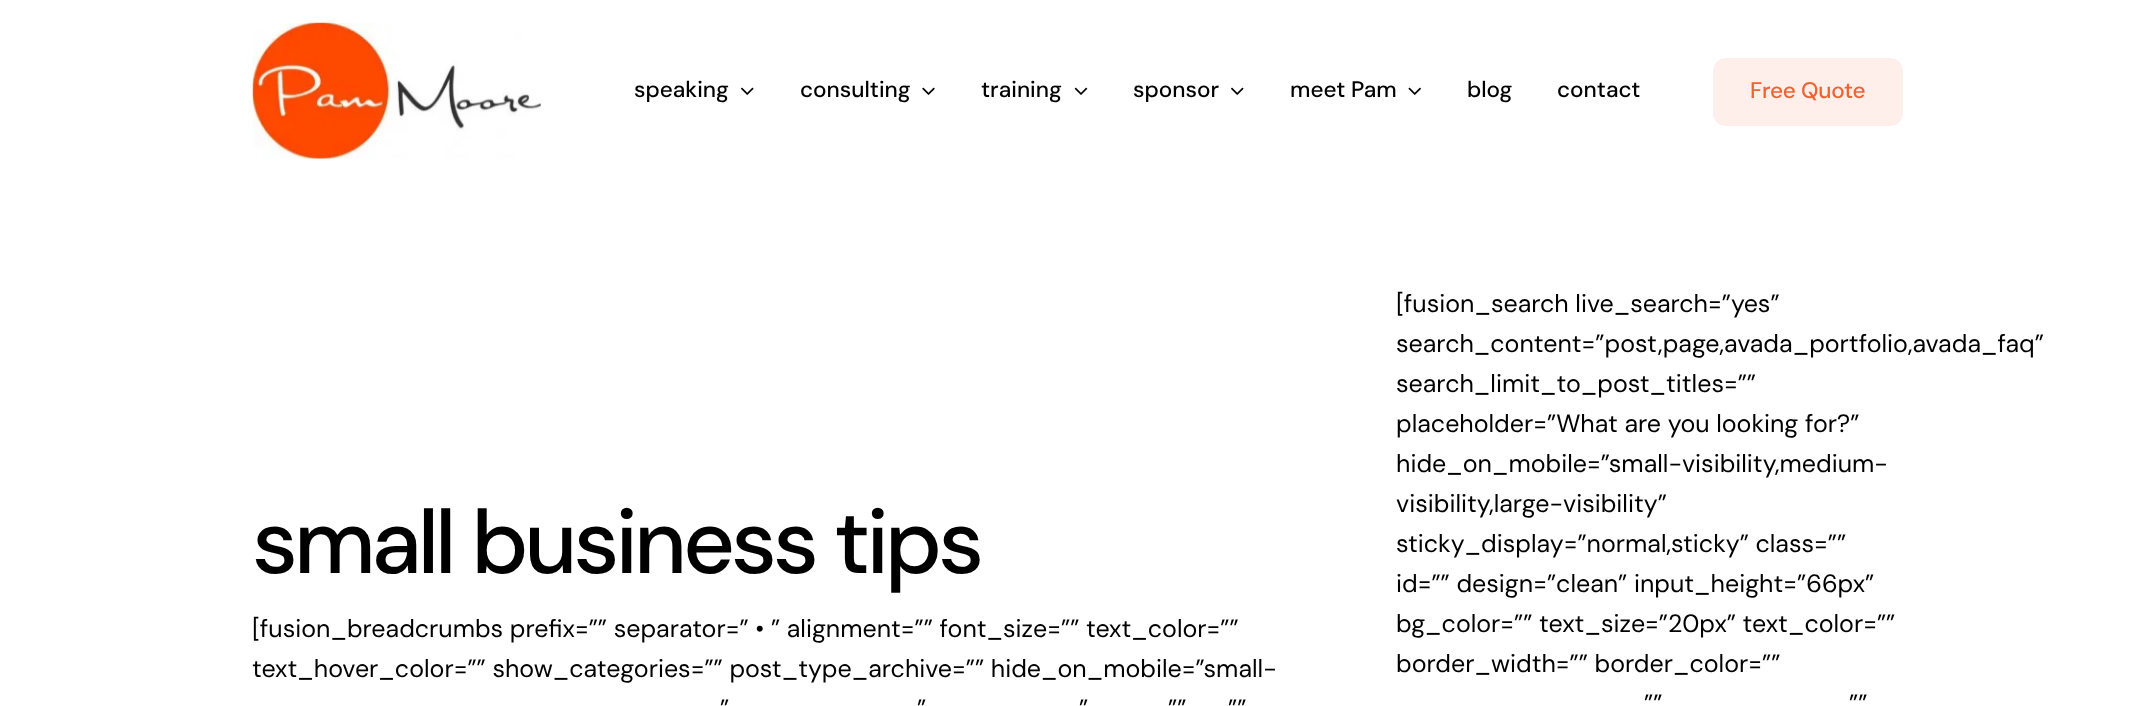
<!DOCTYPE html>
<meta charset="utf-8">
<style>body { margin: 0 } canvas { display: block }</style>
<canvas id="canvas" width="2155" height="706"></canvas>
<script type="module">
  const canvas = document.getElementById("canvas");
  const g = canvas.getContext("2d");
  g.miterLimit = 4;
  g.fontKerning = "normal";
  function drawText(s, x, y, [font, color]) {
    g.font = font;
    g.fillStyle = color;
    g.fillText(s, x, y);
  }
  function fillBox(x, y, w, h, color) {
    g.fillStyle = color;
    g.fillRect(x, y, w, h);
  }
  function fillRounded(x, y, w, h, r, color) {
    g.fillStyle = color;
    g.beginPath();
    g.roundRect(x, y, w, h, r);
    g.fill();
  }
  async function drawPicture(src, x, y, w, h) {
    const img = new Image();
    img.src = src;
    await img.decode();
    g.drawImage(img, x, y, w, h);
  }

  const s1 = ["500 22.5px DM Sans", "#000000"];
  const s2 = ["500 22.5px DM Sans", "#F16232"];
  const s3 = ["500 90px DM Sans", "#000000"];
  const s4 = ["25px DM Sans", "#000000"];

  fillBox(0, 0, 2155, 706, "#FFFFFF");
  await drawPicture("pic1.png", 252, 22, 290, 137);
  drawText("speaking", 634, 97, s1);
  await drawPicture("pic2.png", 741, 87, 13, 8);
  drawText("consulting", 800, 97, s1);
  await drawPicture("pic3.png", 922, 87, 13, 8);
  drawText("training", 981, 97, s1);
  await drawPicture("pic4.png", 1074, 87, 14, 8);
  drawText("sponsor", 1133, 97, s1);
  await drawPicture("pic2.png", 1231, 87, 13, 8);
  drawText("meet Pam", 1290, 97, s1);
  await drawPicture("pic5.png", 1408, 87, 13, 8);
  drawText("blog", 1467, 97, s1);
  drawText("contact", 1557, 97, s1);
  fillRounded(1713, 58, 190, 68, 13, "#FEEFEB");
  g.letterSpacing = "-0.25px";
  drawText("Free Quote", 1750, 98, s2);
  g.letterSpacing = "-4px";
  drawText("small business tips", 252, 573, s3);
  g.letterSpacing = "0px";
  drawText("[fusion_breadcrumbs prefix=”” separator=” • ” alignment=”” font_size=”” text_color=””", 252, 637, s4);
  drawText("text_hover_color=”” show_categories=”” post_type_archive=”” hide_on_mobile=”small-", 252, 677, s4);
  drawText("”", 720, 717, s4);
  drawText("”", 917, 717, s4);
  drawText("”", 1079, 717, s4);
  drawText("””", 1168, 717, s4);
  drawText("””", 1228, 717, s4);
  drawText("[fusion_search live_search=”yes”", 1396, 312, s4);
  drawText("search_content=”post,page,avada_portfolio,avada_faq”", 1396, 352, s4);
  drawText("search_limit_to_post_titles=””", 1396, 392, s4);
  drawText("placeholder=”What are you looking for?”", 1396, 432, s4);
  drawText("hide_on_mobile=”small-visibility,medium-", 1396, 472, s4);
  drawText("visibility,large-visibility”", 1396, 512, s4);
  drawText("sticky_display=”normal,sticky” class=””", 1396, 552, s4);
  drawText("id=”” design=”clean” input_height=”66px”", 1396, 592, s4);
  drawText("bg_color=”” text_size=”20px” text_color=””", 1396, 632, s4);
  drawText("border_width=”” border_color=””", 1396, 672, s4);
  drawText("””", 1644, 712, s4);
  drawText("””", 1849, 712, s4);
</script>
